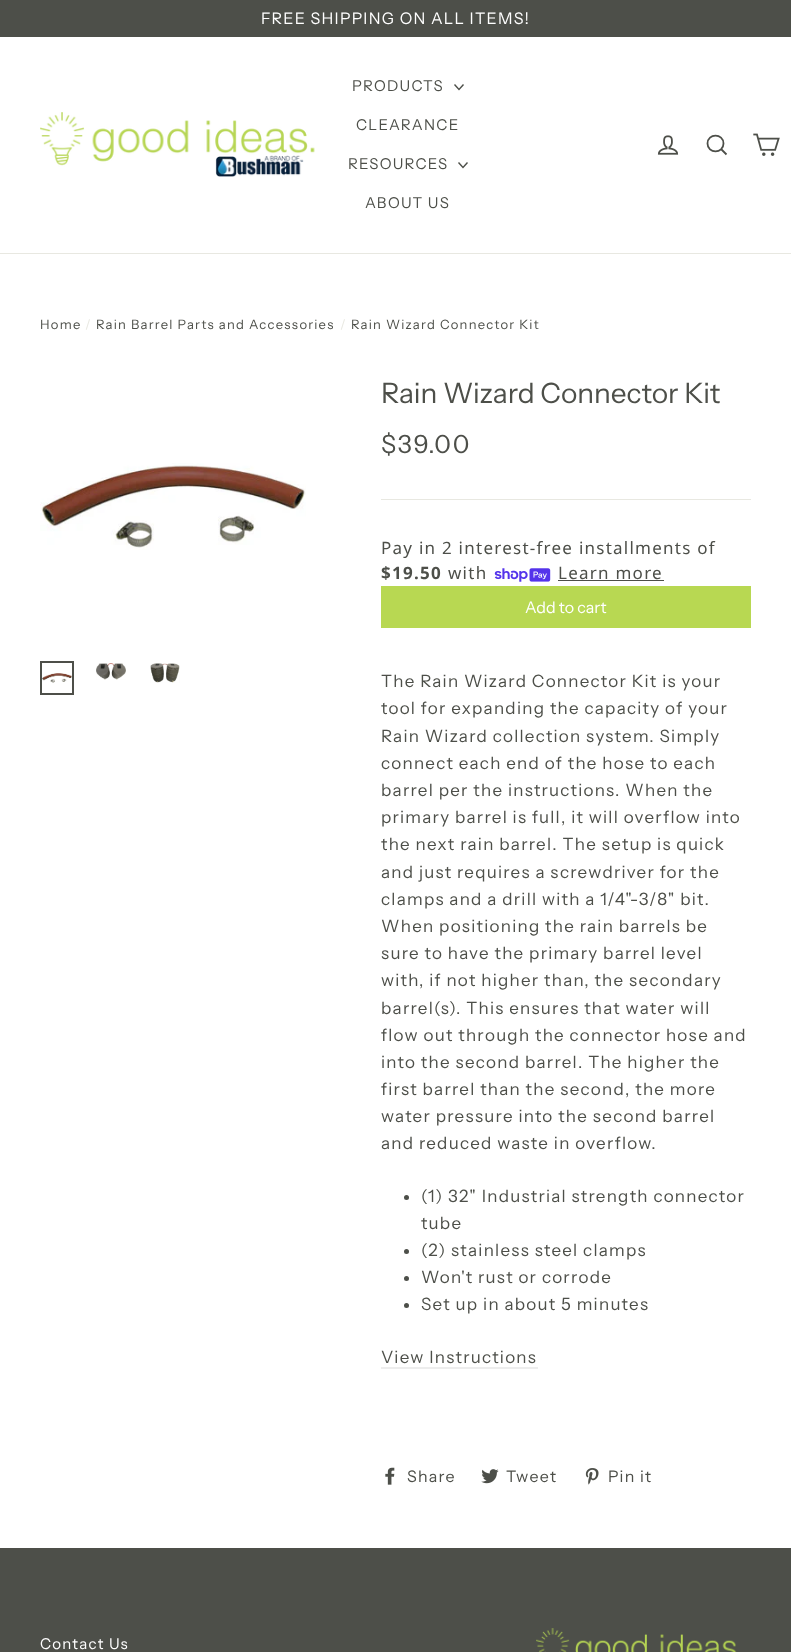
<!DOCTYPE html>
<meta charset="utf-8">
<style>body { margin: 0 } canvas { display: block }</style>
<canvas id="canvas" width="791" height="1652"></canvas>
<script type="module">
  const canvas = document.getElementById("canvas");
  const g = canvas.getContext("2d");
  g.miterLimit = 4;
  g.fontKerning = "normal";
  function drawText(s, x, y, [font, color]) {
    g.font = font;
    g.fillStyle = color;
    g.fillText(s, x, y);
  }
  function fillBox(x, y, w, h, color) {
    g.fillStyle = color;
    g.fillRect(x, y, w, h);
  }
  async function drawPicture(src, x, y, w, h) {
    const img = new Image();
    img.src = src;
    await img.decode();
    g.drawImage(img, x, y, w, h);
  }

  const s1 = ["16px Instrument Sans", "#FFFFFF"];
  const s2 = ["15px Instrument Sans", "#4D4F49"];
  const s3 = ["13px Instrument Sans", "#4D4F49"];
  const s4 = ["13px Instrument Sans", "#E8E8E1"];
  const s5 = ["28px Instrument Sans", "#4D4F49"];
  const s6 = ["25px Instrument Sans", "#4D4F49"];
  const s7 = ["17px Noto Sans", "#4D4F49"];
  const s8 = ["bold 17px Noto Sans", "#4D4F49"];
  const s9 = ["17px Instrument Sans", "#4D4F49"];
  const s10 = ["16px Instrument Sans", "#4D4F49"];
  const s11 = ["15px Instrument Sans", "#FFFFFF"];

  fillBox(0, 0, 791, 1652, "#FFFFFF");
  fillBox(0, 0, 791, 37, "#4D4F49");
  g.letterSpacing = "1.25px";
  drawText("FREE SHIPPING ON ALL ITEMS!", 261, 24, s1);
  fillBox(0, 253, 791, 1, "#E8E8E1");
  await drawPicture("pic1.png", 40, 112, 275, 65);
  drawText("PRODUCTS", 352, 91, s2);
  g.beginPath();
  g.moveTo(454.5, 84.5);
  g.lineTo(459, 89.5);
  g.lineTo(463.5, 84.5);
  g.strokeStyle = "#4D4F49";
  g.lineWidth = 1.4;
  g.stroke();
  drawText("CLEARANCE", 356, 130, s2);
  drawText("RESOURCES", 348, 169, s2);
  g.beginPath();
  g.moveTo(458.5, 162.5);
  g.lineTo(463, 167.5);
  g.lineTo(467.5, 162.5);
  g.stroke();
  drawText("ABOUT US", 365, 208, s2);
  await drawPicture("pic2.png", 657, 135, 22, 20);
  g.beginPath();
  g.moveTo(723.5, 143.5);
  g.bezierCurveTo(723.5, 154, 707.5, 154, 707.5, 143.5);
  g.bezierCurveTo(707.5, 133, 723.5, 133, 723.5, 143.5);
  g.closePath();
  g.moveTo(726.5, 154.5);
  g.lineTo(721.5, 149.5);
  g.lineWidth = 1.8;
  g.stroke();
  await drawPicture("pic3.png", 753, 133, 27, 23);
  drawText("Home", 40, 329, s3);
  drawText("/", 85, 329, s4);
  drawText("Rain Barrel Parts and Accessories", 96, 329, s3);
  drawText("/", 340, 329, s4);
  drawText("Rain Wizard Connector Kit", 351, 329, s3);
  await drawPicture("pic4.png", 40, 463, 266, 87);
  g.lineWidth = 2;
  g.strokeRect(41, 662, 32, 32);
  await drawPicture("pic5.png", 42, 673, 30, 10);
  await drawPicture("pic6.png", 96, 663, 30, 17);
  await drawPicture("pic7.png", 150, 663, 30, 20);
  g.letterSpacing = "0px";
  drawText("Rain Wizard Connector Kit", 381, 403, s5);
  g.letterSpacing = "1.25px";
  drawText("$39.00", 381, 453, s6);
  fillBox(381, 499, 370, 1, "#E8E8E1");
  drawText("Pay in 2 interest-free installments of", 381, 554, s7);
  drawText("$19.50", 381, 579, s8);
  drawText("with", 448, 579, s7);
  await drawPicture("pic8.png", 494, 568, 57, 14);
  drawText("Learn more", 558, 579, s7);
  fillBox(558, 580, 106, 1, "#4D4F49");
  fillBox(381, 586, 370, 42, "#B8D852");
  g.letterSpacing = "0px";
  drawText("Add to cart", 525, 613, s1);
  g.letterSpacing = "1.25px";
  drawText("The Rain Wizard Connector Kit is your", 381, 687, s9);
  drawText("tool for expanding the capacity of your", 381, 714, s9);
  drawText("Rain Wizard collection system. Simply", 381, 742, s9);
  drawText("connect each end of the hose to each", 381, 769, s9);
  drawText("barrel per the instructions. When the", 381, 796, s9);
  drawText("primary barrel is full, it will overflow into", 381, 823, s9);
  drawText("the next rain barrel. The setup is quick", 381, 850, s9);
  drawText("and just requires a screwdriver for the", 381, 878, s9);
  drawText("clamps and a drill with a 1/4\"-3/8\" bit.", 381, 905, s9);
  drawText("When positioning the rain barrels be", 381, 932, s9);
  drawText("sure to have the primary barrel level", 381, 959, s9);
  drawText("with, if not higher than, the secondary", 381, 986, s9);
  drawText("barrel(s). This ensures that water will", 381, 1014, s9);
  drawText("flow out through the connector hose and", 381, 1041, s9);
  drawText("into the second barrel. The higher the", 381, 1068, s9);
  drawText("first barrel than the second, the more", 381, 1095, s9);
  drawText("water pressure into the second barrel", 381, 1122, s9);
  drawText("and reduced waste in overflow.", 381, 1149, s9);
  g.beginPath();
  g.arc(406.5, 1197.5, 2.5, 0, Math.PI * 2);
  g.fill();
  drawText("(1) 32\" Industrial strength connector", 421, 1202, s9);
  drawText("tube", 421, 1229, s9);
  g.beginPath();
  g.arc(406.5, 1251.5, 2.5, 0, Math.PI * 2);
  g.fill();
  drawText("(2) stainless steel clamps", 421, 1256, s9);
  g.beginPath();
  g.arc(406.5, 1278.5, 2.5, 0, Math.PI * 2);
  g.fill();
  drawText("Won't rust or corrode", 421, 1283, s9);
  g.beginPath();
  g.arc(406.5, 1305.5, 2.5, 0, Math.PI * 2);
  g.fill();
  drawText("Set up in about 5 minutes", 421, 1310, s9);
  drawText("View Instructions", 381, 1363, s9);
  fillBox(381, 1367, 157, 2, "#EDEDED");
  await drawPicture("pic9.png", 385, 1467, 10, 18);
  drawText("Share", 407, 1482, s10);
  await drawPicture("pic10.png", 481, 1469, 18, 15);
  drawText("Tweet", 506, 1482, s10);
  await drawPicture("pic11.png", 585, 1468, 14, 17);
  drawText("Pin it", 608, 1482, s10);
  fillBox(0, 1548, 791, 104, "#4D4F49");
  drawText("Contact Us", 40, 1649, s11);
  await drawPicture("pic12.png", 536, 1628, 201, 24);
</script>
